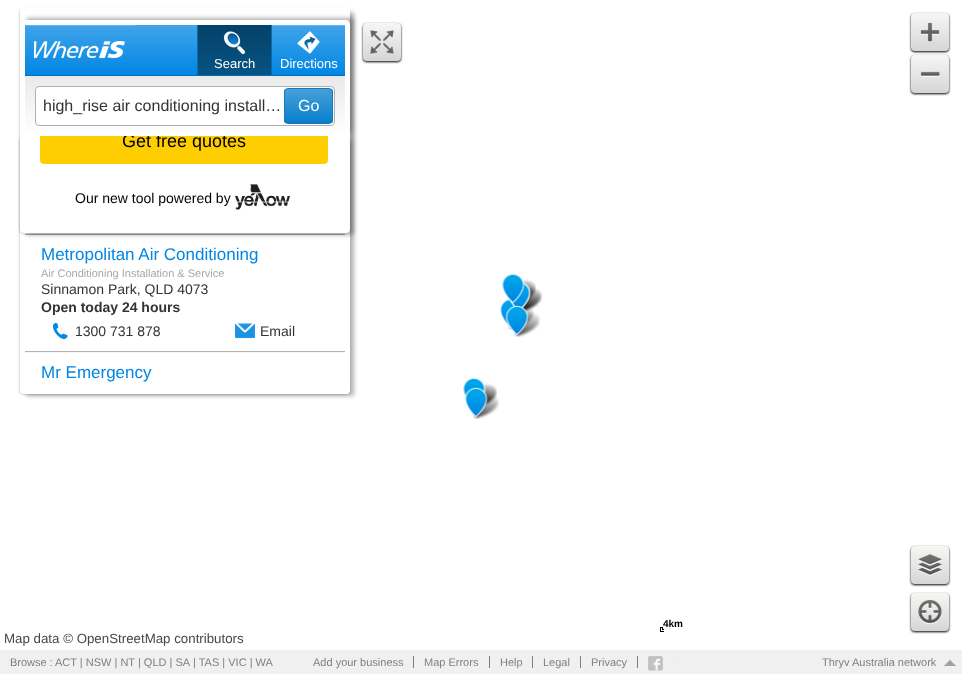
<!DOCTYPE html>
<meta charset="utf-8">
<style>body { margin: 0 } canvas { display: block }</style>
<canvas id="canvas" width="962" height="674"></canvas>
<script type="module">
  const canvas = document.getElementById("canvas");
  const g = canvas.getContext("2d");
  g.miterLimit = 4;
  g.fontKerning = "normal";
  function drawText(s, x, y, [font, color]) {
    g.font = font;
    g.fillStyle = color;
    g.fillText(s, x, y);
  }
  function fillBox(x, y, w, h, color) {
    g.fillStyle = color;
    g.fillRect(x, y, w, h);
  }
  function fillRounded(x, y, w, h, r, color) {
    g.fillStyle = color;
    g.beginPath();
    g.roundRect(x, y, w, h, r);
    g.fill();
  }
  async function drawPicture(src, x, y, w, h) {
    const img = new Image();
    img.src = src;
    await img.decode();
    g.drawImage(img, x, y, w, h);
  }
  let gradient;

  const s1 = ["18px Liberation Sans", "#000000"];
  const s2 = ["13px Liberation Sans", "#FFFFFF"];
  const s3 = ["16px Liberation Sans", "#333333"];
  const s4 = ["16px Liberation Sans", "#FFFFFF"];
  const s5 = ["14px Liberation Sans", "#000000"];
  const s6 = ["17px Liberation Sans", "#0086E3"];
  const s7 = ["11px Liberation Sans", "#A7A7A7"];
  const s8 = ["14px Liberation Sans", "#333333"];
  const s9 = ["bold 14px Liberation Sans", "#333333"];
  const s10 = ["bold 10px Liberation Sans", "#000000"];
  const s11 = ["13.3px Liberation Sans", "#424949"];
  const s12 = ["11px Liberation Sans", "#7F7F7F"];

  fillBox(0, 0, 962, 674, "#FFFFFF");
  g.fillStyle = "rgba(0, 0, 0, 0.3)";
  g.filter = "blur(2px)";
  g.beginPath();
  g.roundRect(26, 140, 328, 256, 3);
  g.fill();
  g.filter = "none";
  g.filter = "blur(1.5px)";
  g.beginPath();
  g.roundRect(20, 138, 328, 256, 3);
  g.fill();
  g.filter = "none";
  g.fillStyle = "#FFFFFF";
  g.beginPath();
  g.roundRect(20, 136, 330, 258, [0, 0, 4, 4]);
  g.fill();
  g.beginPath();
  g.moveTo(20, 136);
  g.lineTo(350, 136);
  g.lineTo(350, 390);
  g.bezierCurveTo(350, 392, 348, 394, 346, 394);
  g.lineTo(24, 394);
  g.bezierCurveTo(22, 394, 20, 392, 20, 390);
  g.closePath();
  g.moveTo(25, 136);
  g.lineTo(345, 136);
  g.lineTo(345, 389);
  g.lineTo(25, 389);
  g.closePath();
  g.fill("evenodd");
  fillBox(25, 234, 320, 1, "#B2B2B2");
  g.fillStyle = "rgba(0, 0, 0, 0.3)";
  g.filter = "blur(2px)";
  g.beginPath();
  g.roundRect(26, 12, 328, 223, 3);
  g.fill();
  g.filter = "none";
  g.filter = "blur(1.5px)";
  g.beginPath();
  g.roundRect(20, 10, 328, 223, 3);
  g.fill();
  g.filter = "none";
  fillRounded(20, 8, 330, 225, 4, "#FFFFFF");
  fillRounded(40, 120, 288, 44, 4, "#FFCE00");
  g.fillStyle = "rgba(0, 0, 0, 0.3)";
  g.filter = "blur(2px)";
  g.beginPath();
  g.roundRect(26, 18, 328, 114, 3);
  g.fill();
  g.filter = "none";
  drawText("Get free quotes", 122, 147, s1);
  g.fillStyle = "#FFFFFF";
  g.beginPath();
  g.moveTo(24, 20);
  g.lineTo(346, 20);
  g.bezierCurveTo(348, 20, 350, 22, 350, 24);
  g.lineTo(350, 136);
  g.lineTo(20, 136);
  g.lineTo(20, 24);
  g.bezierCurveTo(20, 22, 22, 20, 24, 20);
  g.closePath();
  g.moveTo(25, 25);
  g.lineTo(345, 25);
  g.lineTo(345, 136);
  g.lineTo(25, 136);
  g.closePath();
  g.fill("evenodd");
  gradient = g.createLinearGradient(185, 75, 185, 25);
  gradient.addColorStop(0, "#0086E3");
  gradient.addColorStop(1, "#40A4EA");
  g.fillStyle = gradient;
  g.fillRect(25, 25, 320, 50);
  fillBox(25, 75, 320, 1, "#006FBA");
  fillBox(25, 25, 110, 1, "#66B6EE");
  await drawPicture("pic1.png", 34, 41, 91, 18);
  gradient = g.createLinearGradient(235, 75, 235, 26);
  gradient.addColorStop(0, "#065383");
  gradient.addColorStop(1, "#054269");
  g.fillStyle = gradient;
  g.fillRect(198, 26, 73, 49);
  fillBox(197, 25, 74, 1, "#054269");
  fillBox(197, 25, 1, 50, "#006FBA");
  await drawPicture("pic2.png", 223, 31, 23, 24);
  drawText("Search", 214, 68, s2);
  fillBox(271, 25, 74, 1, "#66B6EE");
  fillBox(271, 25, 1, 50, "#006FBA");
  await drawPicture("pic3.png", 297, 31, 23, 23);
  drawText("Directions", 280, 68, s2);
  g.fillStyle = "#000000";
  g.filter = "blur(1px)";
  g.beginPath();
  g.roundRect(363, 24, 38, 38, 4);
  g.fill();
  g.filter = "none";
  gradient = g.createLinearGradient(382, 61, 382, 23);
  gradient.addColorStop(0, "#D6D6D6");
  gradient.addColorStop(1, "#F6F6F5");
  g.fillStyle = gradient;
  g.beginPath();
  g.roundRect(363, 23, 38, 38, 4);
  g.fill();
  await drawPicture("pic4.png", 370, 30, 24, 24);
  gradient = g.createLinearGradient(185, 136, 185, 76);
  gradient.addColorStop(0, "#FFFFFF");
  gradient.addColorStop(1, "#EAEAEA");
  g.fillStyle = gradient;
  g.fillRect(25, 76, 320, 60);
  g.fillStyle = "#FFFFFF";
  g.beginPath();
  g.roundRect(35.5, 86.5, 299, 39, 3.5);
  g.fill();
  g.strokeStyle = "#B1B1B1";
  g.stroke();
  drawText("high_rise air conditioning install…", 43, 111, s3);
  g.save();
  g.beginPath();
  g.roundRect(284, 88, 49, 36, 4);
  g.clip();
  gradient = g.createLinearGradient(309, 123, 309, 89);
  gradient.addColorStop(0, "#077FCC");
  gradient.addColorStop(1, "#47A0D9");
  g.fillStyle = gradient;
  g.fillRect(284, 89, 49, 34);
  g.restore();
  g.beginPath();
  g.roundRect(284.5, 88.5, 48, 35, 3.5);
  g.strokeStyle = "#1B79B6";
  g.stroke();
  drawText("Go", 298, 111, s4);
  g.save();
  g.beginPath();
  g.moveTo(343, 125);
  g.lineTo(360, 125);
  g.lineTo(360, 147);
  g.lineTo(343, 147);
  g.closePath();
  g.moveTo(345, 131);
  g.lineTo(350, 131);
  g.lineTo(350, 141);
  g.lineTo(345, 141);
  g.closePath();
  g.clip("evenodd");
  g.fillStyle = "rgba(90, 90, 90, 0.7)";
  g.filter = "blur(2px)";
  g.beginPath();
  g.rect(350, 132, 3, 8);
  g.fill();
  g.filter = "none";
  g.restore();
  drawText("Our new tool powered by", 75, 203, s5);
  await drawPicture("pic5.png", 235, 184, 55, 26);
  fillBox(25, 351, 320, 1, "#B2B2B2");
  drawText("Metropolitan Air Conditioning", 41, 260, s6);
  drawText("Air Conditioning Installation & Service", 41, 277, s7);
  drawText("Sinnamon Park, QLD 4073", 41, 294, s8);
  drawText("Open today 24 hours", 41, 312, s9);
  await drawPicture("pic6.png", 52, 322, 16, 18);
  drawText("1300 731 878", 75, 336, s8);
  await drawPicture("pic7.png", 235, 323, 20, 16);
  drawText("Email", 260, 336, s8);
  fillBox(25, 352, 320, 1, "#F7F7F7");
  drawText("Mr Emergency", 41, 378, s6);
  g.fillStyle = "#000000";
  g.filter = "blur(1px)";
  g.beginPath();
  g.roundRect(911, 14, 38, 38, 4);
  g.fill();
  g.filter = "none";
  gradient = g.createLinearGradient(930, 51, 930, 13);
  gradient.addColorStop(0, "#D6D6D6");
  gradient.addColorStop(1, "#F6F6F5");
  g.fillStyle = gradient;
  g.beginPath();
  g.roundRect(911, 13, 38, 38, 4);
  g.fill();
  await drawPicture("pic8.png", 920, 22, 20, 20);
  g.fillStyle = "#000000";
  g.filter = "blur(1px)";
  g.beginPath();
  g.roundRect(911, 56, 38, 38, 4);
  g.fill();
  g.filter = "none";
  gradient = g.createLinearGradient(930, 93, 930, 55);
  gradient.addColorStop(0, "#D6D6D6");
  gradient.addColorStop(1, "#F6F6F5");
  g.fillStyle = gradient;
  g.beginPath();
  g.roundRect(911, 55, 38, 38, 4);
  g.fill();
  await drawPicture("pic9.png", 920, 71, 20, 6);
  await drawPicture("pic10.png", 463, 274, 79, 145);
  await drawPicture("pic11.png", 660, 627, 4, 5);
  drawText("4km", 663, 627, s10);
  drawText("Map data © OpenStreetMap contributors", 4, 643, s11);
  g.fillStyle = "#000000";
  g.filter = "blur(1px)";
  g.beginPath();
  g.roundRect(911, 547, 38, 38, 4);
  g.fill();
  g.filter = "none";
  gradient = g.createLinearGradient(930, 584, 930, 546);
  gradient.addColorStop(0, "#D6D6D6");
  gradient.addColorStop(1, "#F6F6F5");
  g.fillStyle = gradient;
  g.beginPath();
  g.roundRect(911, 546, 38, 38, 4);
  g.fill();
  await drawPicture("pic12.png", 918, 554, 24, 22);
  g.fillStyle = "#000000";
  g.filter = "blur(1px)";
  g.beginPath();
  g.roundRect(911, 594, 38, 38, 4);
  g.fill();
  g.filter = "none";
  gradient = g.createLinearGradient(930, 631, 930, 593);
  gradient.addColorStop(0, "#D6D6D6");
  gradient.addColorStop(1, "#F6F6F5");
  g.fillStyle = gradient;
  g.beginPath();
  g.roundRect(911, 593, 38, 38, 4);
  g.fill();
  await drawPicture("pic13.png", 918, 600, 24, 24);
  fillBox(0, 650, 962, 24, "#F0F0F0");
  drawText("Browse :", 10, 666, s12);
  drawText("ACT | NSW | NT | QLD | SA", 55, 666, s12);
  drawText("| TAS | VIC | WA", 193, 666, s12);
  drawText("Add your business", 313, 666, s12);
  fillBox(413, 656, 1, 12, "#7F7F7F");
  drawText("Map Errors", 424, 666, s12);
  fillBox(489, 656, 1, 12, "#7F7F7F");
  drawText("Help", 500, 666, s12);
  fillBox(532, 656, 1, 12, "#7F7F7F");
  drawText("Legal", 543, 666, s12);
  fillBox(580, 656, 1, 12, "#7F7F7F");
  drawText("Privacy", 591, 666, s12);
  fillBox(637, 656, 1, 12, "#7F7F7F");
  await drawPicture("pic14.png", 648, 656, 25, 15);
  drawText("Thryv Australia network", 822, 666, s12);
  await drawPicture("pic15.png", 944, 660, 12, 6);
</script>
